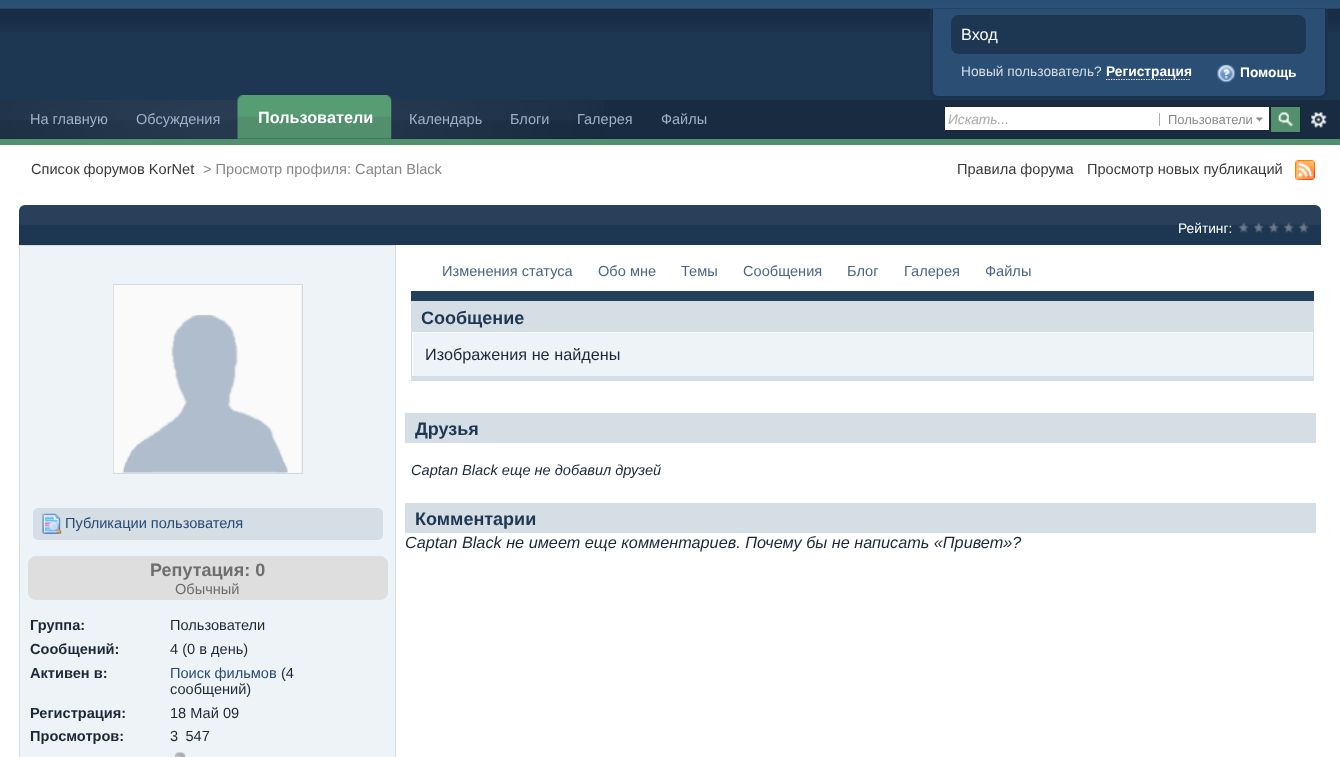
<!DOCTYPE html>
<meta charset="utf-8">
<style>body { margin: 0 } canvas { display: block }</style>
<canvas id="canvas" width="1340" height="757"></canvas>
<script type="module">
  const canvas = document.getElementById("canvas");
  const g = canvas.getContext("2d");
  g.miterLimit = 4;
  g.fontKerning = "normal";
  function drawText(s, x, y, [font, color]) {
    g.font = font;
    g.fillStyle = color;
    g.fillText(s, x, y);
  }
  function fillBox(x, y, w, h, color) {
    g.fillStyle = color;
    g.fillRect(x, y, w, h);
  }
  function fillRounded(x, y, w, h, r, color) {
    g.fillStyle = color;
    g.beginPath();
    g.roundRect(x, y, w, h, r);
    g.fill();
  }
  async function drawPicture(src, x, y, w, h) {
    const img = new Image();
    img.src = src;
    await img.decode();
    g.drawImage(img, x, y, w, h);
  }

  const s1 = ["16.25px Liberation Sans", "#FFFFFF"];
  const s2 = ["13.75px Liberation Sans", "#D5DDE5"];
  const s3 = ["bold 13.75px Liberation Sans", "#FFFFFF"];
  const s4 = ["14.5px Liberation Sans", "#9BB2C8"];
  const s5 = ["bold 16.25px Liberation Sans", "#FFFFFF"];
  const s6 = ["italic 13.75px Liberation Sans", "#A9A9A9"];
  const s7 = ["13px Liberation Sans", "#878787"];
  const s8 = ["14.6px Liberation Sans", "#393939"];
  const s9 = ["14.6px Liberation Sans", "#878787"];
  const s10 = ["13.75px Liberation Sans", "#FFFFFF"];
  const s11 = ["14.6px Liberation Sans", "#4A6784"];
  const s12 = ["bold 18px Liberation Sans", "#1D3652"];
  const s13 = ["16.25px Liberation Sans", "#1C2837"];
  const s14 = ["italic 14.6px Liberation Sans", "#1C2837"];
  const s15 = ["italic 16.25px Liberation Sans", "#1C2837"];
  const s16 = ["14.6px Liberation Sans", "#284B72"];
  const s17 = ["bold 18px Liberation Sans", "#6E6E6E"];
  const s18 = ["14.6px Liberation Sans", "#6E6E6E"];
  const s19 = ["bold 14.6px Liberation Sans", "#1C2837"];
  const s20 = ["14.6px Liberation Sans", "#1C2837"];

  fillBox(0, 0, 1340, 757, "#FFFFFF");
  fillBox(0, 32, 1340, 68, "#1D3652");
  await drawPicture("pic1.png", 0, 0, 1340, 32);
  g.fillStyle = "#2B4F74";
  g.beginPath();
  g.roundRect(933, 9, 392, 87, [0, 0, 5, 5]);
  g.fill();
  g.fillStyle = "#1C334E";
  g.beginPath();
  g.moveTo(930, 9);
  g.lineTo(1328, 9);
  g.lineTo(1328, 91);
  g.bezierCurveTo(1328, 95, 1324, 99, 1320, 99);
  g.lineTo(938, 99);
  g.bezierCurveTo(933, 99, 930, 95, 930, 91);
  g.closePath();
  g.moveTo(932, 9);
  g.lineTo(1325, 9);
  g.lineTo(1325, 91);
  g.bezierCurveTo(1325, 94, 1323, 96, 1320, 96);
  g.lineTo(938, 96);
  g.bezierCurveTo(935, 96, 932, 94, 932, 91);
  g.closePath();
  g.fill("evenodd");
  fillRounded(951, 15, 355, 39, 8, "#1D3652");
  drawText("Вход", 961, 40, s1);
  drawText("Новый пользователь?", 961, 76, s2);
  g.beginPath();
  g.moveTo(1106, 79.5);
  g.lineTo(1191, 79.5);
  g.strokeStyle = "#FFFFFF";
  g.lineWidth = 1.2;
  g.setLineDash([1.25, 1.25]);
  g.stroke();
  drawText("Регистрация", 1106, 76, s3);
  await drawPicture("pic2.png", 1217, 64, 19, 19);
  drawText("Помощь", 1240, 77, s3);
  fillBox(0, 100, 1340, 39, "#192B40");
  await drawPicture("pic3.png", 0, 100, 604, 39);
  fillBox(0, 139, 1340, 6, "#528F6C");
  drawText("На главную", 30, 124, s4);
  drawText("Обсуждения", 136, 124, s4);
  await drawPicture("pic4.png", 237, 95, 8, 44);
  await drawPicture("pic5.png", 245, 95, 147, 44);
  drawText("Пользователи", 258, 123, s5);
  drawText("Календарь", 409, 124, s4);
  drawText("Блоги", 510, 124, s4);
  drawText("Галерея", 577, 124, s4);
  drawText("Файлы", 661, 124, s4);
  g.fillStyle = "#FFFFFF";
  g.beginPath();
  g.rect(944.5, 106.5, 325, 24);
  g.fill();
  g.strokeStyle = "#1A2735";
  g.lineWidth = 1;
  g.setLineDash([]);
  g.stroke();
  drawText("Искать...", 948, 124, s6);
  await drawPicture("pic6.png", 1256, 117, 7, 5);
  fillBox(1159, 113, 1, 13, "#AFAFAF");
  drawText("Пользователи", 1168, 124, s7);
  fillBox(1271, 107, 29, 25, "#528F6C");
  await drawPicture("pic7.png", 1278, 112, 15, 15);
  g.strokeRect(1270.5, 106.5, 30, 26);
  await drawPicture("pic8.png", 1311, 112, 16, 16);
  drawText("Список форумов KorNet", 31, 174, s8);
  drawText("> Просмотр профиля: Captan Black", 203, 174, s9);
  drawText("Правила форума", 957, 174, s8);
  drawText("Просмотр новых публикаций", 1087, 174, s8);
  await drawPicture("pic9.png", 1295, 160, 20, 20);
  g.fillStyle = "#1D3652";
  g.beginPath();
  g.roundRect(19, 205, 1302, 40, [6, 6, 0, 0]);
  g.fill();
  await drawPicture("pic10.png", 19, 205, 1302, 20);
  drawText("Рейтинг:", 1178, 233, s10);
  await drawPicture("pic11.png", 1238, 222, 11, 11);
  await drawPicture("pic11.png", 1253, 222, 11, 11);
  await drawPicture("pic11.png", 1268, 222, 11, 11);
  await drawPicture("pic11.png", 1283, 222, 11, 11);
  await drawPicture("pic11.png", 1298, 222, 11, 11);
  fillBox(411, 291, 903, 10, "#243F5C");
  drawText("Изменения статуса", 442, 276, s11);
  drawText("Обо мне", 598, 276, s11);
  drawText("Темы", 681, 276, s11);
  drawText("Сообщения", 743, 276, s11);
  drawText("Блог", 847, 276, s11);
  drawText("Галерея", 904, 276, s11);
  drawText("Файлы", 985, 276, s11);
  fillBox(412, 332, 901, 44, "#FAFBFC");
  fillBox(411, 301, 903, 31, "#D5DDE5");
  drawText("Сообщение", 421, 324, s12);
  fillBox(413, 333, 900, 43, "#EEF3F8");
  fillBox(1313, 331, 1, 50, "#D5DDE5");
  fillBox(411, 376, 903, 5, "#D5DDE5");
  fillBox(411, 331, 1, 50, "#D5DDE5");
  drawText("Изображения не найдены", 425, 360, s13);
  fillBox(405, 413, 911, 30, "#D5DDE5");
  drawText("Друзья", 415, 435, s12);
  drawText("Captan Black еще не добавил друзей", 411, 475, s14);
  fillBox(405, 503, 911, 30, "#D5DDE5");
  drawText("Комментарии", 415, 525, s12);
  drawText("Captan Black не имеет еще комментариев. Почему бы не написать «Привет»?", 405, 548, s15);
  fillBox(20, 246, 375, 511, "#EEF3F8");
  fillBox(19, 245, 377, 1, "#D5DDE5");
  fillBox(395, 245, 1, 512, "#D5DDE5");
  fillBox(19, 245, 1, 512, "#D5DDE5");
  g.strokeStyle = "#D8D8D8";
  g.strokeRect(113.5, 284.5, 189, 189);
  await drawPicture("pic12.png", 113, 285, 188, 188);
  fillRounded(33, 508, 350, 32, 5, "#D5DDE5");
  await drawPicture("pic13.png", 42, 513, 20, 21);
  drawText("Публикации пользователя", 65, 528, s16);
  fillRounded(28, 556, 360, 44, 8, "#DEDEDE");
  drawText("Репутация: 0", 150, 576, s17);
  drawText("Обычный", 175, 594, s18);
  drawText("Группа:", 30, 630, s19);
  drawText("Пользователи", 170, 630, s20);
  drawText("Сообщений:", 30, 654, s19);
  drawText("4 (0 в день)", 170, 654, s20);
  drawText("Активен в:", 30, 678, s19);
  drawText("Поиск фильмов", 170, 678, s16);
  drawText("(4", 281, 678, s20);
  drawText("сообщений)", 170, 694, s20);
  drawText("Регистрация:", 30, 718, s19);
  drawText("18 Май 09", 170, 718, s20);
  drawText("Просмотров:", 30, 741, s19);
  drawText("3 547", 170, 741, s20);
  await drawPicture("pic14.png", 174, 752, 12, 5);
</script>
